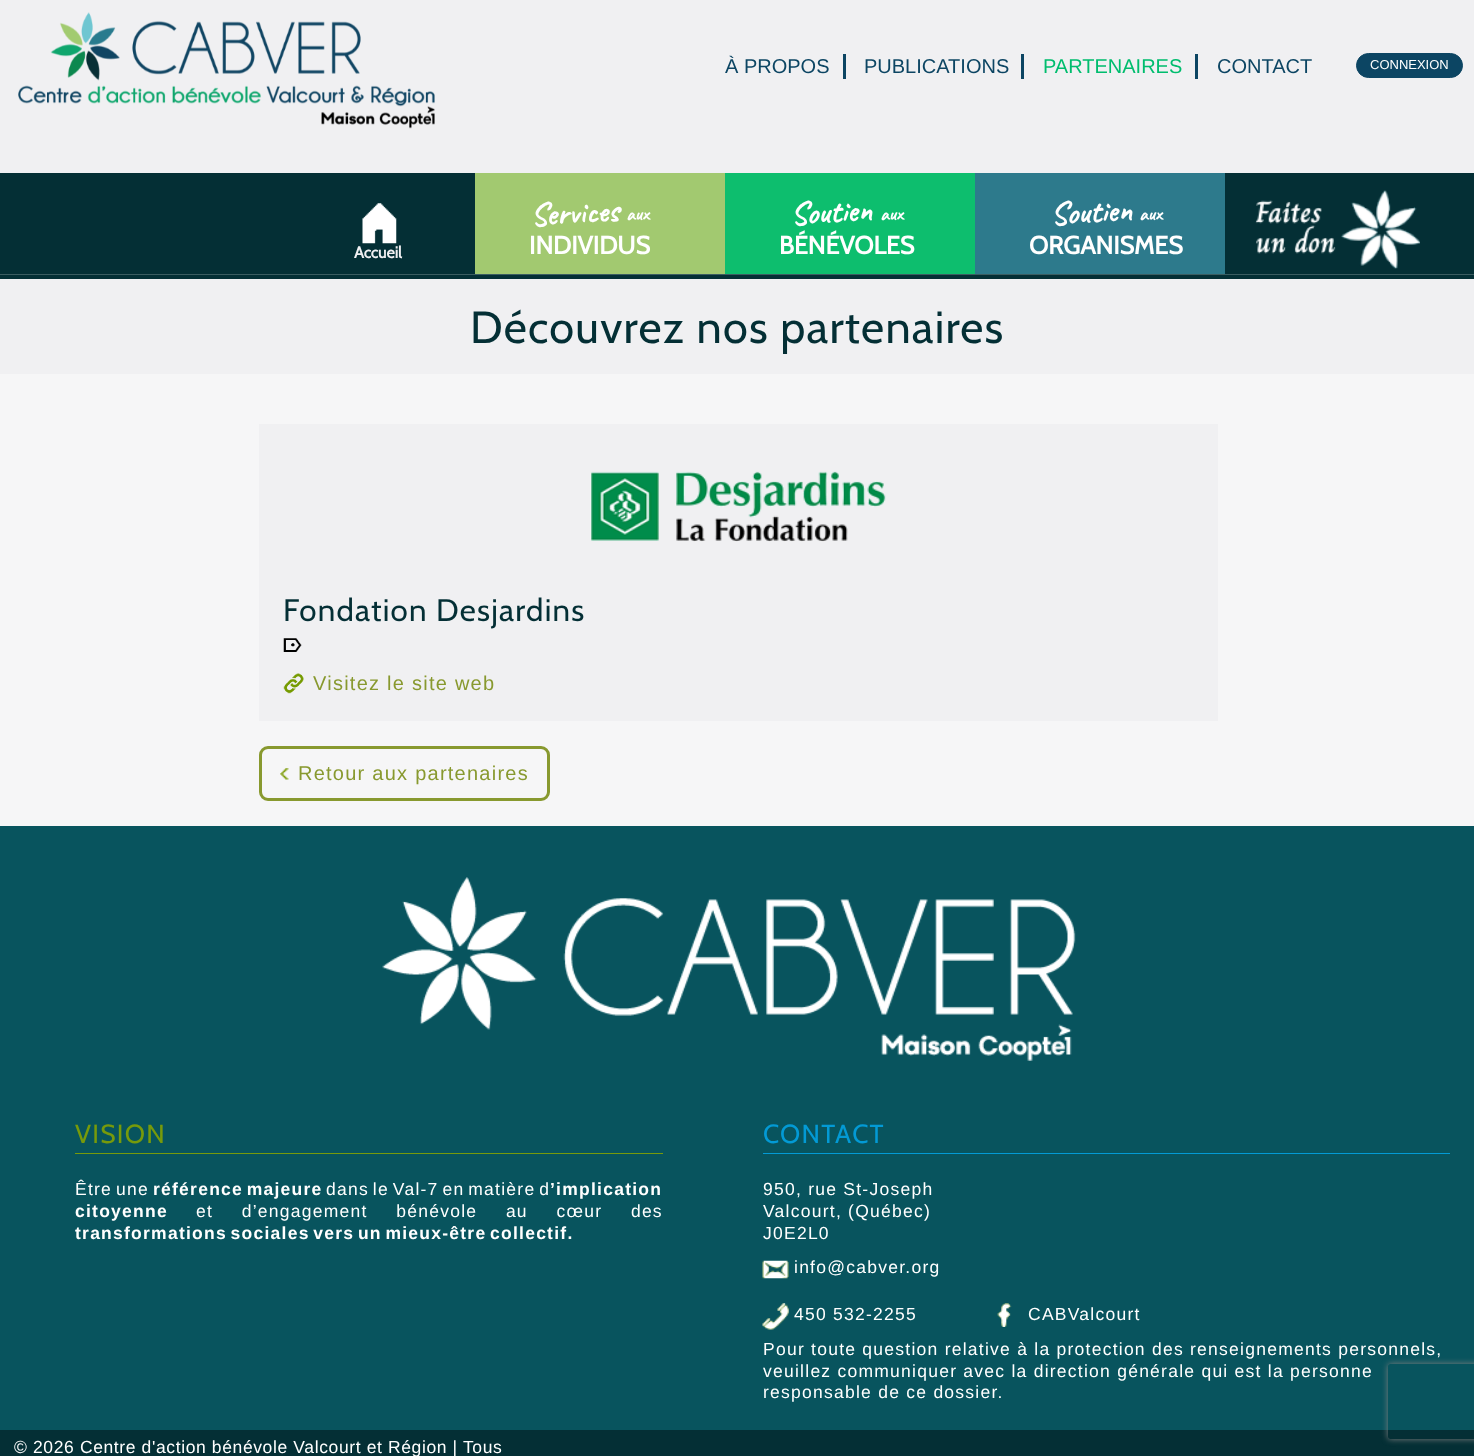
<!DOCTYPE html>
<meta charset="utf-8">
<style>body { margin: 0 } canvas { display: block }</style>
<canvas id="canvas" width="1474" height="1456"></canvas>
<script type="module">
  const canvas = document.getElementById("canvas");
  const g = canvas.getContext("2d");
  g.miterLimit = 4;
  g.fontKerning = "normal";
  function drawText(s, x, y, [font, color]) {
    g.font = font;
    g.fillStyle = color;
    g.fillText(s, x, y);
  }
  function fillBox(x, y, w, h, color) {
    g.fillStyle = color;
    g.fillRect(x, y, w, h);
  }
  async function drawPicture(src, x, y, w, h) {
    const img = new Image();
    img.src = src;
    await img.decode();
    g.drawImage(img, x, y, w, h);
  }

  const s1 = ["20px Liberation Sans", "#0C4563"];
  const s2 = ["20px Liberation Sans", "#00BD6E"];
  const s3 = ["13px Liberation Sans", "#FFFFFF"];
  const s4 = ["bold 16px Cabin", "#F0F0F2"];
  const s5 = ["bold 25px Cabin", "#FFFFFF"];
  const s6 = ["45px Cabin", "#042F35"];
  const s7 = ["31.25px Cabin", "#042F35"];
  const s8 = ["20px Liberation Sans", "#88992F"];
  const s9 = ["26.25px Cabin", "#779A0B"];
  const s10 = ["17.5px Liberation Sans", "#FFFFFF"];
  const s11 = ["bold 17.5px Liberation Sans", "#FFFFFF"];
  const s12 = ["26.25px Cabin", "#039AD5"];

  fillBox(0, 0, 1474, 1456, "#F6F6F7");
  fillBox(0, 0, 1474, 173, "#F0F0F2");
  await drawPicture("pic1.png", 18, 12, 417, 117);
  fillBox(843, 54, 3, 25, "#0C4563");
  drawText("À PROPOS", 725, 73, s1);
  fillBox(1021, 54, 3, 25, "#0C4563");
  drawText("PUBLICATIONS", 864, 73, s1);
  fillBox(1195, 54, 3, 25, "#0C4563");
  drawText("PARTENAIRES", 1043, 73, s2);
  drawText("CONTACT", 1217, 73, s1);
  g.beginPath();
  g.roundRect(1356.5, 53.5, 106, 24, 12);
  g.fill();
  g.strokeStyle = "#0C4563";
  g.stroke();
  drawText("CONNEXION", 1370, 69, s3);
  fillBox(0, 173, 1474, 106, "#042F35");
  await drawPicture("pic2.png", 362, 203, 35, 41);
  drawText("Accueil", 354, 258, s4);
  fillBox(475, 173, 250, 101, "#A2C970");
  g.font = "bold 32.5px Caveat";
  g.fillStyle = "#FFFFFF";
  g.save();
  g.translate(531, 226);
  g.rotate(-3 * Math.PI / 180);
  g.fillText("Services", 0, 0);
  g.restore();
  g.font = "bold 20px Caveat";
  g.save();
  g.translate(626, 221);
  g.rotate(-3 * Math.PI / 180);
  g.fillText("aux", 0, 0);
  g.restore();
  drawText("INDIVIDUS", 529, 254, s5);
  fillBox(725, 173, 250, 101, "#0DBE6E");
  g.font = "bold 32.5px Caveat";
  g.fillStyle = "#FFFFFF";
  g.save();
  g.translate(791, 225);
  g.rotate(-3 * Math.PI / 180);
  g.fillText("Soutien", 0, 0);
  g.restore();
  g.font = "bold 20px Caveat";
  g.save();
  g.translate(880, 221);
  g.rotate(-3 * Math.PI / 180);
  g.fillText("aux", 0, 0);
  g.restore();
  drawText("BÉNÉVOLES", 779, 254, s5);
  fillBox(975, 173, 250, 101, "#2D7A8C");
  g.font = "bold 32.5px Caveat";
  g.fillStyle = "#FFFFFF";
  g.save();
  g.translate(1051, 225);
  g.rotate(-3 * Math.PI / 180);
  g.fillText("Soutien", 0, 0);
  g.restore();
  g.font = "bold 20px Caveat";
  g.save();
  g.translate(1139, 221);
  g.rotate(-3 * Math.PI / 180);
  g.fillText("aux", 0, 0);
  g.restore();
  drawText("ORGANISMES", 1029, 254, s5);
  await drawPicture("pic3.png", 1255, 190, 165, 79);
  fillBox(0, 274, 1474, 1, "#3B5D61");
  fillBox(0, 279, 1474, 95, "#F0F0F2");
  g.letterSpacing = "1.25px";
  drawText("Découvrez nos partenaires", 470, 343, s6);
  fillBox(259, 424, 959, 297, "#F0F0F2");
  await drawPicture("pic4.png", 590, 471, 296, 71);
  drawText("Fondation Desjardins", 283, 621, s7);
  await drawPicture("pic5.png", 283, 638, 19, 14);
  await drawPicture("pic6.png", 283, 673, 21, 21);
  drawText("Visitez le site web", 313, 690, s8);
  await drawPicture("pic7.png", 280, 768, 9, 12);
  g.beginPath();
  g.roundRect(260.5, 747.5, 288, 52, 7.5);
  g.strokeStyle = "#88992F";
  g.lineWidth = 3;
  g.stroke();
  drawText("Retour aux partenaires", 298, 780, s8);
  fillBox(0, 826, 1474, 604, "#08545E");
  await drawPicture("pic8.png", 382, 877, 694, 184);
  fillBox(75, 1153, 588, 1, "#779A0B");
  drawText("VISION", 75, 1143, s9);
  g.wordSpacing = "-2.25px";
  drawText("Être une", 75, 1195, s10);
  g.wordSpacing = "-2.5px";
  drawText("référence majeure", 153, 1195, s11);
  g.wordSpacing = "-2.25px";
  drawText("dans le Val-7 en matière d", 326, 1195, s10);
  g.wordSpacing = "0px";
  drawText("’implication", 550, 1195, s11);
  drawText("citoyenne", 75, 1217, s11);
  g.wordSpacing = "22.5px";
  drawText("et d’engagement bénévole au cœur des", 196, 1217, s10);
  g.wordSpacing = "-2.5px";
  drawText("transformations sociales vers un mieux-être", 75, 1239, s11);
  g.wordSpacing = "0px";
  drawText("collectif.", 490, 1239, s11);
  fillBox(763, 1153, 687, 1, "#039AD5");
  drawText("CONTACT", 763, 1143, s12);
  drawText("950, rue St-Joseph", 763, 1195, s10);
  drawText("Valcourt, (Québec)", 763, 1217, s10);
  drawText("J0E2L0", 763, 1239, s10);
  await drawPicture("pic9.png", 762, 1260, 27, 19);
  drawText("info@cabver.org", 794, 1273, s10);
  await drawPicture("pic10.png", 762, 1303, 27, 27);
  drawText("450 532-2255", 794, 1320, s10);
  await drawPicture("pic11.png", 997, 1303, 15, 24);
  drawText("CABValcourt", 1028, 1320, s10);
  drawText("Pour toute question relative à la protection des renseignements personnels,", 763, 1355, s10);
  drawText("veuillez communiquer avec la direction générale qui est la personne", 763, 1377, s10);
  drawText("responsable de ce dossier.", 763, 1398, s10);
  fillBox(0, 1430, 1474, 26, "#042F35");
  g.letterSpacing = "0.62px";
  drawText("© 2026 Centre d'action bénévole Valcourt et Région | Tous", 14, 1453, s10);
  g.save();
  g.beginPath();
  g.moveTo(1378, 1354);
  g.lineTo(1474, 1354);
  g.lineTo(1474, 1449);
  g.lineTo(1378, 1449);
  g.closePath();
  g.moveTo(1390.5, 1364);
  g.lineTo(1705.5, 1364);
  g.bezierCurveTo(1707, 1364, 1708, 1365, 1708, 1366.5);
  g.lineTo(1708, 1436.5);
  g.bezierCurveTo(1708, 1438, 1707, 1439, 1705.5, 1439);
  g.lineTo(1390.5, 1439);
  g.bezierCurveTo(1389, 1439, 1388, 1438, 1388, 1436.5);
  g.lineTo(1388, 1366.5);
  g.bezierCurveTo(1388, 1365, 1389, 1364, 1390.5, 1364);
  g.closePath();
  g.clip("evenodd");
  g.fillStyle = "#808080";
  g.filter = "blur(3px)";
  g.beginPath();
  g.roundRect(1388, 1364, 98, 75, 2.5);
  g.fill();
  g.filter = "none";
  g.restore();
</script>
